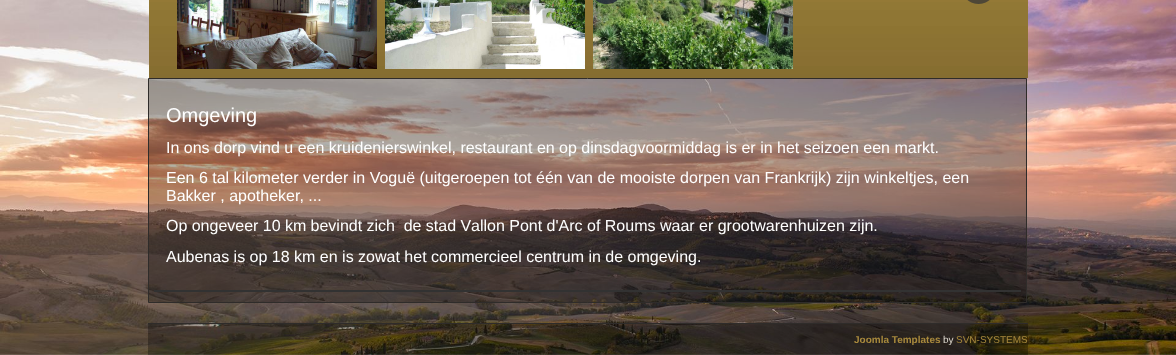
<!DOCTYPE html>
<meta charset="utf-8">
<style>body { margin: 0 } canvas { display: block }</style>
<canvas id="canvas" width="1176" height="355"></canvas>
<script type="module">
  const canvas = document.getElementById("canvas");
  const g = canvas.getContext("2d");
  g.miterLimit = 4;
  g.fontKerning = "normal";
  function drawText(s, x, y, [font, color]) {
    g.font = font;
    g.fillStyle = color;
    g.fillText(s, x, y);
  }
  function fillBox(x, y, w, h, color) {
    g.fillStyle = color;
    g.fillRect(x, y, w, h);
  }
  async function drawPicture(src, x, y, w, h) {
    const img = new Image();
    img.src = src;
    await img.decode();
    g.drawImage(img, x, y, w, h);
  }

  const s1 = ["20px Liberation Sans", "#FFFFFF"];
  const s2 = ["16px Liberation Sans", "#FFFFFF"];
  const s3 = ["bold 10px Liberation Sans", "#A98A3D"];
  const s4 = ["10px Liberation Sans", "#DED9CF"];
  const s5 = ["10px Liberation Sans", "#A98A3D"];

  fillBox(0, 0, 1176, 355, "#FFFFFF");
  await drawPicture("pic1.png", 0, 0, 1176, 355);
  await drawPicture("pic2.png", 149, 0, 879, 78);
  await drawPicture("pic3.png", 177, 0, 200, 69);
  await drawPicture("pic4.png", 385, 0, 200, 69);
  await drawPicture("pic5.png", 593, 0, 200, 69);
  await drawPicture("pic6.png", 188, 0, 23, 4);
  await drawPicture("pic7.png", 595, 0, 23, 4);
  await drawPicture("pic8.png", 595, 0, 23, 4);
  await drawPicture("pic9.png", 967, 0, 23, 4);
  g.fillStyle = "rgba(0, 0, 0, 0.3)";
  g.beginPath();
  g.rect(148.5, 78.5, 878, 224);
  g.fill();
  g.strokeStyle = "#2F2C2A";
  g.stroke();
  drawText("Omgeving", 166, 122, s1);
  drawText("In ons dorp vind u een kruidenierswinkel, restaurant en op dinsdagvoormiddag is er in het seizoen een markt.", 166, 153, s2);
  drawText("Een 6 tal kilometer verder in Voguë (uitgeroepen tot één van de mooiste dorpen van Frankrijk) zijn winkeltjes, een", 166, 183, s2);
  drawText("Bakker , apotheker, ...", 166, 201, s2);
  g.wordSpacing = "-0.1px";
  drawText("Op ongeveer 10 km bevindt zich  de stad V", 166, 231, s2);
  g.wordSpacing = "0px";
  drawText("allon Pont d'Arc of Roums waar er grootwarenhuizen zijn.", 471, 231, s2);
  drawText("Aubenas is op 18 km en is zowat het commercieel centrum in de omgeving.", 166, 262, s2);
  fillBox(154, 290, 867, 2, "#323232");
  fillBox(148, 323, 880, 1, "#2F2C2A");
  fillBox(148, 324, 880, 31, "rgba(0, 0, 0, 0.3)");
  drawText("Joomla Templates", 854, 343, s3);
  drawText("by", 943, 343, s4);
  drawText("SVN-SYSTEMS", 956, 343, s5);
</script>
